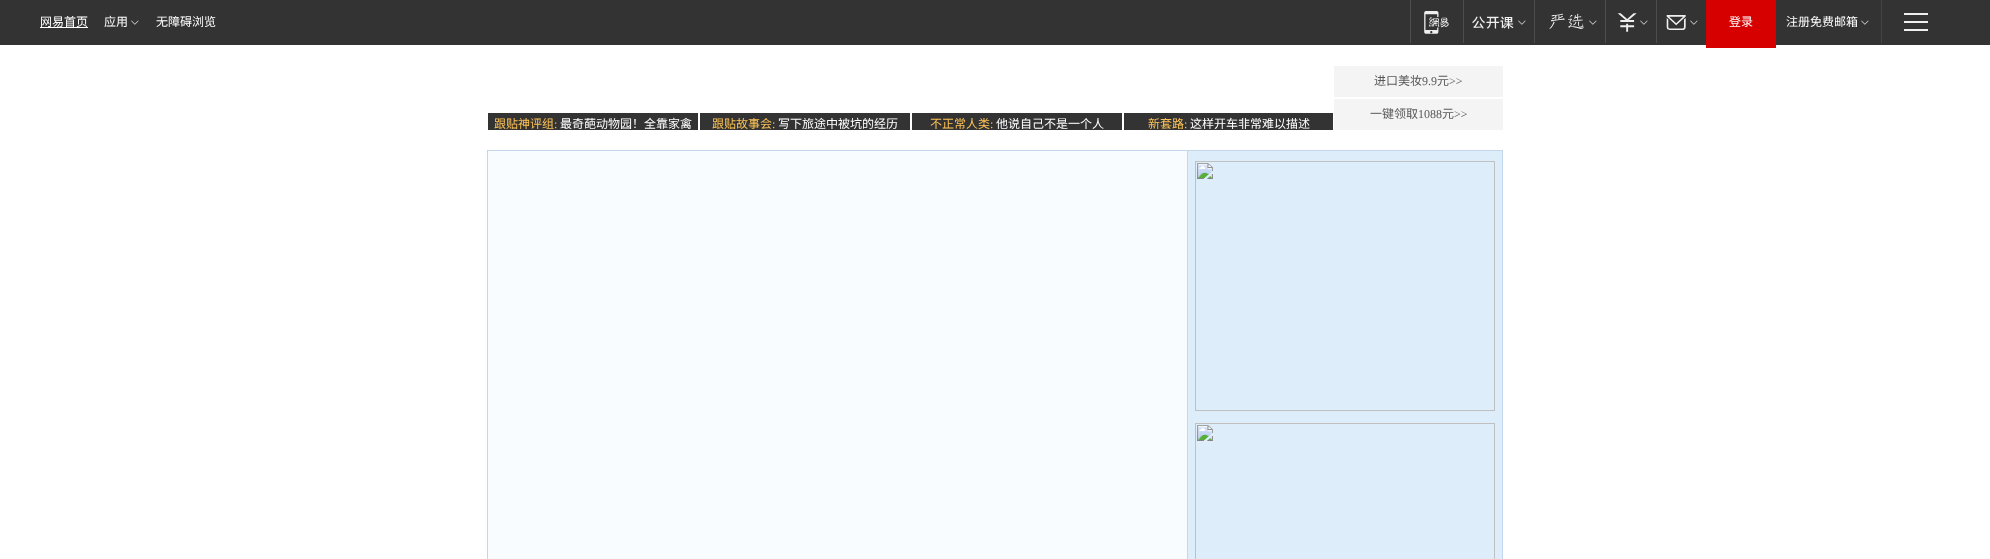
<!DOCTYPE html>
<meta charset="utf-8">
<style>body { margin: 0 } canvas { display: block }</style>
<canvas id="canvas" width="1990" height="559"></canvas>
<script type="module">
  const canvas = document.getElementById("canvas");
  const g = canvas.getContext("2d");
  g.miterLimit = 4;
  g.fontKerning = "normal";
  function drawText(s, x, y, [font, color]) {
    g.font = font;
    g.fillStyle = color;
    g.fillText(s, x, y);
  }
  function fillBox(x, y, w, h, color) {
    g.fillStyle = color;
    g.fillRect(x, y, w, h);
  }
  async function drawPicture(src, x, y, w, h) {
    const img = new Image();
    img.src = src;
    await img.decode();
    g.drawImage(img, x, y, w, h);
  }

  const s1 = ["12px Noto Sans CJK SC", "#FFFFFF"];
  const s2 = ["12px Noto Sans CJK SC", "#585858"];
  const s3 = ["12px Liberation Serif", "#585858"];
  const s4 = ["12px Noto Sans CJK SC", "#FDC255"];
  const s5 = ["12px Liberation Serif", "#FDC255"];

  fillBox(0, 0, 1990, 559, "#FFFFFF");
  fillBox(0, 0, 1990, 45, "#333333");
  drawText("网易首页", 40, 26, s1);
  fillBox(40, 27, 48, 1, "#FFFFFF");
  drawText("应用", 104, 26, s1);
  await drawPicture("pic1.png", 131, 20, 8, 5);
  drawText("无障碍浏览", 156, 26, s1);
  fillBox(1410, 0, 1, 43, "#4D4D4D");
  await drawPicture("pic2.png", 1424, 11, 25, 23);
  fillBox(1463, 0, 1, 43, "#4D4D4D");
  await drawPicture("pic3.png", 1472, 16, 42, 13);
  await drawPicture("pic1.png", 1518, 20, 8, 5);
  fillBox(1534, 0, 1, 43, "#4D4D4D");
  await drawPicture("pic4.png", 1549, 13, 35, 16);
  await drawPicture("pic1.png", 1589, 20, 8, 5);
  fillBox(1605, 0, 1, 43, "#4D4D4D");
  await drawPicture("pic5.png", 1617, 13, 20, 19);
  await drawPicture("pic1.png", 1640, 20, 8, 5);
  fillBox(1656, 0, 1, 43, "#4D4D4D");
  await drawPicture("pic6.png", 1666, 15, 20, 15);
  await drawPicture("pic1.png", 1690, 20, 8, 5);
  fillBox(1706, 0, 70, 48, "#D60000");
  drawText("登录", 1729, 26, s1);
  drawText("注册免费邮箱", 1786, 26, s1);
  await drawPicture("pic1.png", 1861, 20, 8, 5);
  fillBox(1881, 0, 1, 43, "#444444");
  fillBox(1904, 13, 24, 2, "#EFEFEF");
  fillBox(1904, 21, 24, 2, "#EFEFEF");
  fillBox(1904, 29, 24, 2, "#EFEFEF");
  fillBox(1334, 66, 169, 31, "#F4F4F4");
  drawText("进口美妆", 1374, 85, s2);
  drawText("9.9", 1422, 85, s3);
  drawText("元", 1437, 85, s2);
  drawText(">>", 1449, 85, s3);
  fillBox(1334, 99, 169, 31, "#F4F4F4");
  drawText("一键领取", 1370, 118, s2);
  drawText("1088", 1418, 118, s3);
  drawText("元", 1442, 118, s2);
  drawText(">>", 1454, 118, s3);
  fillBox(488, 113, 210, 17, "#333333");
  drawText("跟贴神评组", 494, 128, s4);
  drawText(":", 554, 128, s5);
  drawText("最奇葩动物园！全靠家禽", 560, 128, s1);
  fillBox(700, 113, 210, 17, "#333333");
  drawText("跟贴故事会", 712, 128, s4);
  drawText(":", 772, 128, s5);
  drawText("写下旅途中被坑的经历", 778, 128, s1);
  fillBox(912, 113, 210, 17, "#333333");
  drawText("不正常人类", 930, 128, s4);
  drawText(":", 990, 128, s5);
  drawText("他说自己不是一个人", 996, 128, s1);
  fillBox(1124, 113, 209, 17, "#333333");
  drawText("新套路", 1148, 128, s4);
  drawText(":", 1184, 128, s5);
  drawText("这样开车非常难以描述", 1190, 128, s1);
  await drawPicture("pic7.png", 487, 151, 1016, 408);
  fillBox(487, 150, 1016, 1, "#C4D6EC");
  await drawPicture("pic8.png", 1195, 161, 300, 250);
  await drawPicture("pic9.png", 1195, 423, 300, 136);
</script>
